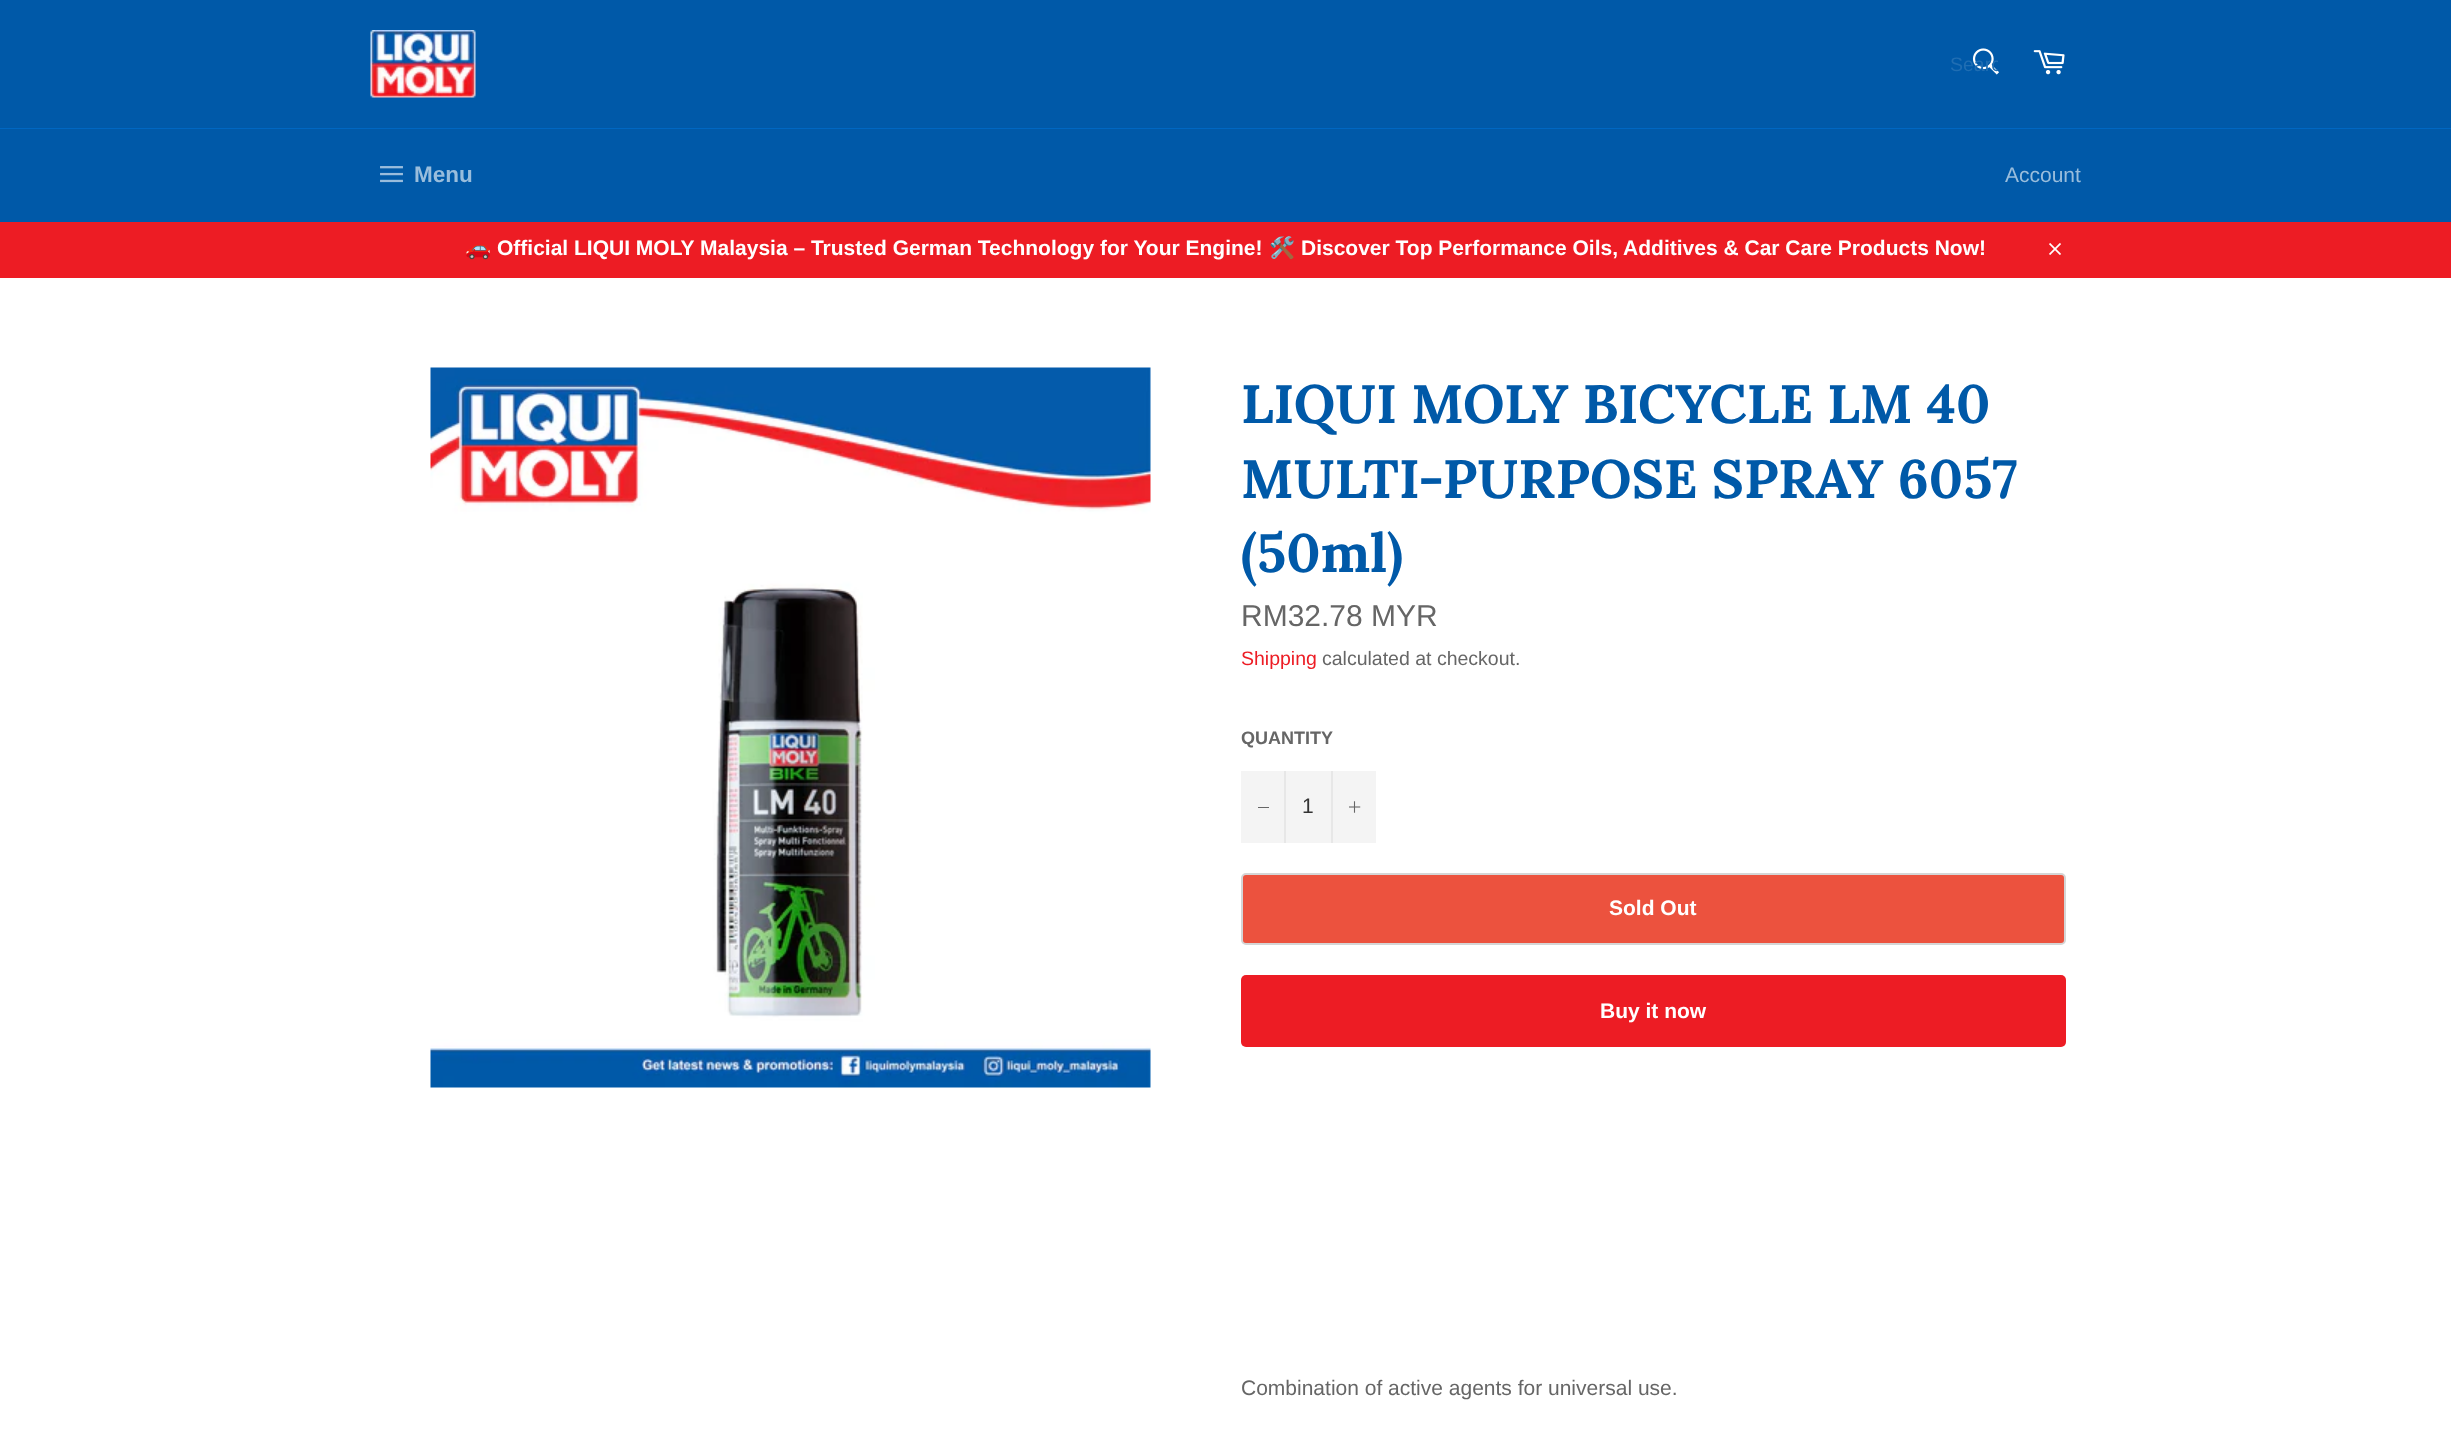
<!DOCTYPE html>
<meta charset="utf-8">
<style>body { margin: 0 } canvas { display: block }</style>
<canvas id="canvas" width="2451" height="1441"></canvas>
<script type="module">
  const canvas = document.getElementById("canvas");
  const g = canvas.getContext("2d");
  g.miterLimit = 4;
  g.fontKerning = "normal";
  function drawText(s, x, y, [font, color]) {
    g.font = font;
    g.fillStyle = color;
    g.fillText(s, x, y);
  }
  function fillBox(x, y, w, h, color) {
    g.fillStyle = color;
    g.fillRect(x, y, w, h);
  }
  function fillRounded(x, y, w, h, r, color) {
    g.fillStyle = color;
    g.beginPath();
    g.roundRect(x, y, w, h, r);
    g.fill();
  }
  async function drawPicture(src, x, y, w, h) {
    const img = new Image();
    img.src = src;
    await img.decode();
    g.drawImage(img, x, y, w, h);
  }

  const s1 = ["19.5px Arimo", "#206EB3"];
  const s2 = ["bold 22.5px Arimo", "#99BDDC"];
  const s3 = ["21px Arimo", "#99BDDC"];
  const s4 = ["bold 21px Noto Color Emoji", "#FFFFFF"];
  const s5 = ["bold 21px Arimo", "#FFFFFF"];
  const s6 = ["bold 54px Lora", "#0059A8"];
  const s7 = ["30px Arimo", "#666666"];
  const s8 = ["19.5px Arimo", "#ED1C24"];
  const s9 = ["19.5px Arimo", "#666666"];
  const s10 = ["bold 18px Arimo", "#666666"];
  const s11 = ["21px Arimo", "#333333"];
  const s12 = ["21px Arimo", "#666666"];

  fillBox(0, 0, 2451, 1441, "#FFFFFF");
  fillBox(0, 0, 2451, 128, "#0059A8");
  await drawPicture("pic1.png", 370, 30, 106, 68);
  await drawPicture("pic2.png", 1972, 48, 27, 27);
  g.save();
  g.beginPath();
  g.rect(1950, 53, 48, 22);
  g.clip();
  drawText("Searc", 1950, 71, s1);
  g.restore();
  await drawPicture("pic3.png", 2033, 50, 32, 25);
  fillBox(0, 128, 2451, 1, "#0067C2");
  fillBox(0, 129, 2451, 93, "#0059A8");
  await drawPicture("pic4.png", 380, 166, 23, 17);
  drawText("Menu", 414, 182, s2);
  drawText("Account", 2005, 182, s3);
  fillBox(0, 222, 2451, 56, "#ED1C24");
  drawText("🚗", 465, 255, s4);
  drawText("Official LIQUI MOLY Malaysia – Trusted German Technology for Your Engine!", 497, 255, s5);
  drawText("🛠️", 1269, 255, s4);
  drawText("Discover Top Performance Oils, Additives & Car Care Products Now!", 1301, 255, s5);
  await drawPicture("pic5.png", 2049, 243, 12, 12);
  await drawPicture("pic6.png", 430, 367, 721, 721);
  drawText("LIQUI MOLY BICYCLE LM 40", 1241, 423, s6);
  drawText("MULTI-PURPOSE SPRAY 6057", 1241, 498, s6);
  drawText("(50ml)", 1241, 572, s6);
  drawText("RM32.78 MYR", 1241, 626, s7);
  drawText("Shipping", 1241, 665, s8);
  drawText("calculated at checkout.", 1322, 665, s9);
  drawText("QUANTITY", 1241, 744, s10);
  fillBox(1241, 771, 135, 72, "#F4F4F4");
  fillBox(1284, 771, 2, 72, "#E7E7E7");
  fillBox(1258, 807, 11, 1, "#666666");
  drawText("1", 1302, 813, s11);
  fillBox(1331, 771, 2, 72, "#E7E7E7");
  await drawPicture("pic7.png", 1349, 801, 12, 12);
  g.fillStyle = "#EC523E";
  g.beginPath();
  g.roundRect(1242, 874, 823, 70, 4);
  g.fill();
  g.strokeStyle = "#D5D5D5";
  g.lineWidth = 2;
  g.stroke();
  drawText("Sold Out", 1609, 915, s5);
  fillRounded(1241, 975, 825, 72, 5, "#ED1C24");
  drawText("Buy it now", 1600, 1018, s5);
  drawText("Combination of active agents for universal use.", 1241, 1395, s12);
</script>
